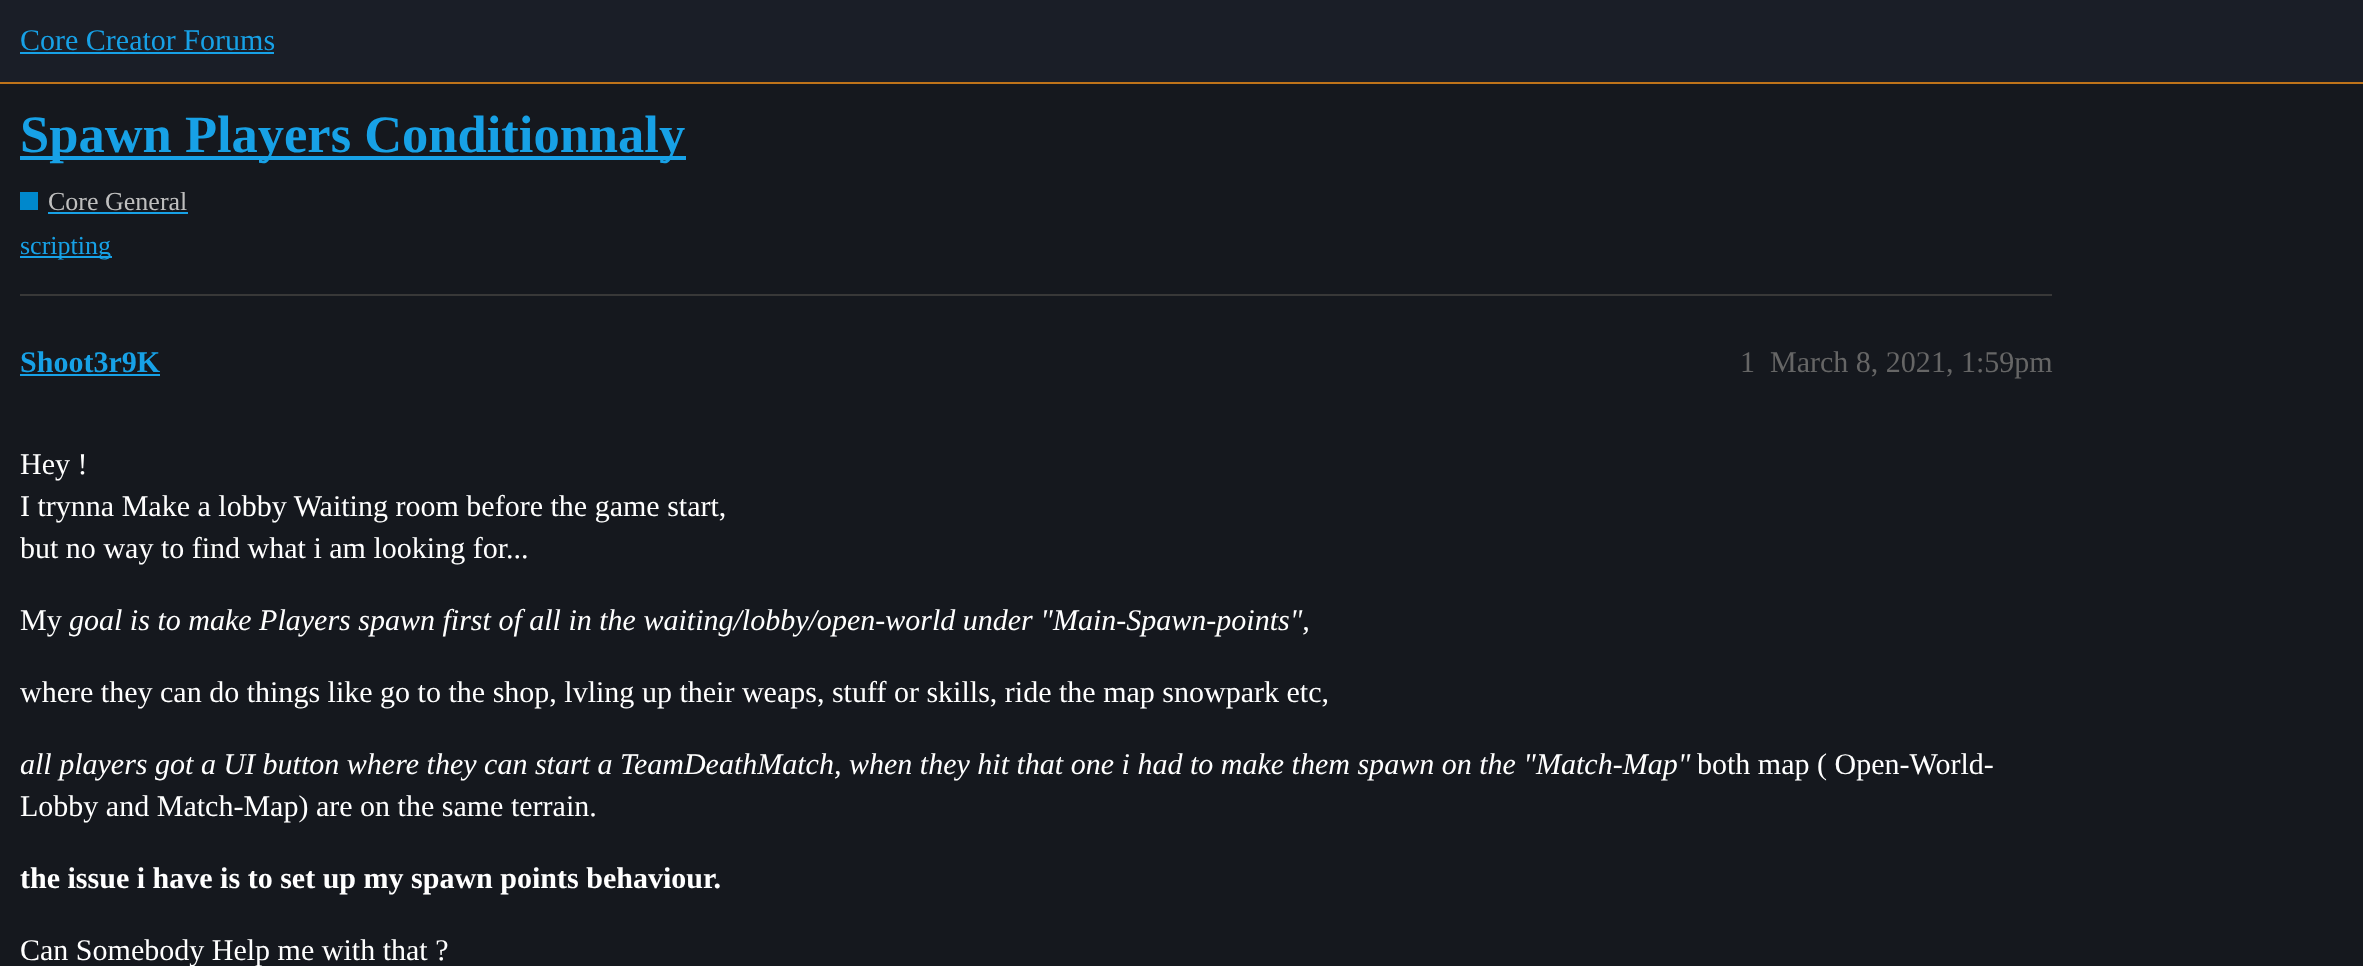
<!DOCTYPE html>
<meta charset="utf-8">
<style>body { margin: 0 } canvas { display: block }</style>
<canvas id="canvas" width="2363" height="966"></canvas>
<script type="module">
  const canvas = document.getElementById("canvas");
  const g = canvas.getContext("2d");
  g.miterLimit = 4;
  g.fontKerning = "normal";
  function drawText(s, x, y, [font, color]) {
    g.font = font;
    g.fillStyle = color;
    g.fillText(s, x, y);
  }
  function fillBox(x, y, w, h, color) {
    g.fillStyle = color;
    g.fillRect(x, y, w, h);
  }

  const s1 = ["30.02px Liberation Serif", "#17A1E6"];
  const s2 = ["bold 52.5px Liberation Serif", "#17A1E6"];
  const s3 = ["26px Liberation Serif", "#BFBFBF"];
  const s4 = ["26px Liberation Serif", "#17A1E6"];
  const s5 = ["bold 30.02px Liberation Serif", "#17A1E6"];
  const s6 = ["30.02px Liberation Serif", "#666666"];
  const s7 = ["30.02px Liberation Serif", "#FFFFFF"];
  const s8 = ["italic 30.02px Liberation Serif", "#FFFFFF"];
  const s9 = ["bold 30.02px Liberation Serif", "#FFFFFF"];

  fillBox(0, 0, 2363, 966, "#15181E");
  fillBox(0, 0, 2363, 82, "#1A1E27");
  fillBox(0, 82, 2363, 2, "#BE731A");
  drawText("Core Creator Forums", 20, 50, s1);
  fillBox(20, 52, 254, 2, "#17A1E6");
  fillBox(20, 156, 666, 4, "#17A1E6");
  drawText("Spawn Players Conditionnaly", 20, 152, s2);
  fillBox(20, 192, 18, 18, "#0088CC");
  drawText("Core General", 48, 210, s3);
  fillBox(48, 212, 140, 2, "#17A1E6");
  fillBox(20, 256, 92, 2, "#17A1E6");
  drawText("scripting", 20, 254, s4);
  fillBox(20, 294, 2032, 2, "#383838");
  drawText("Shoot3r9K", 20, 372, s5);
  fillBox(20, 374, 140, 2, "#17A1E6");
  drawText("1", 1740, 372, s6);
  drawText("March 8, 2021, 1:59pm", 1770, 372, s6);
  drawText("Hey !", 20, 474, s7);
  drawText("I trynna Make a lobby Waiting room before the game start,", 20, 516, s7);
  drawText("but no way to find what i am looking for...", 20, 558, s7);
  drawText("My", 20, 630, s7);
  drawText("goal is to make Players spawn first of all in the waiting/lobby/open-world under \"Main-Spawn-points\",", 69, 630, s8);
  drawText("where they can do things like go to the shop, lvling up their weaps, stuff or skills, ride the map snowpark etc,", 20, 702, s7);
  drawText("all players got a UI button where they can start a TeamDeathMatch, when they hit that one i had to make them spawn on the \"Match-Map\"", 20, 774, s8);
  drawText("both map ( Open-World-", 1697, 774, s7);
  drawText("Lobby and Match-Map) are on the same terrain.", 20, 816, s7);
  drawText("the issue i have is to set up my spawn points behaviour.", 20, 888, s9);
  drawText("Can Somebody Help me with that ?", 20, 960, s7);
</script>
